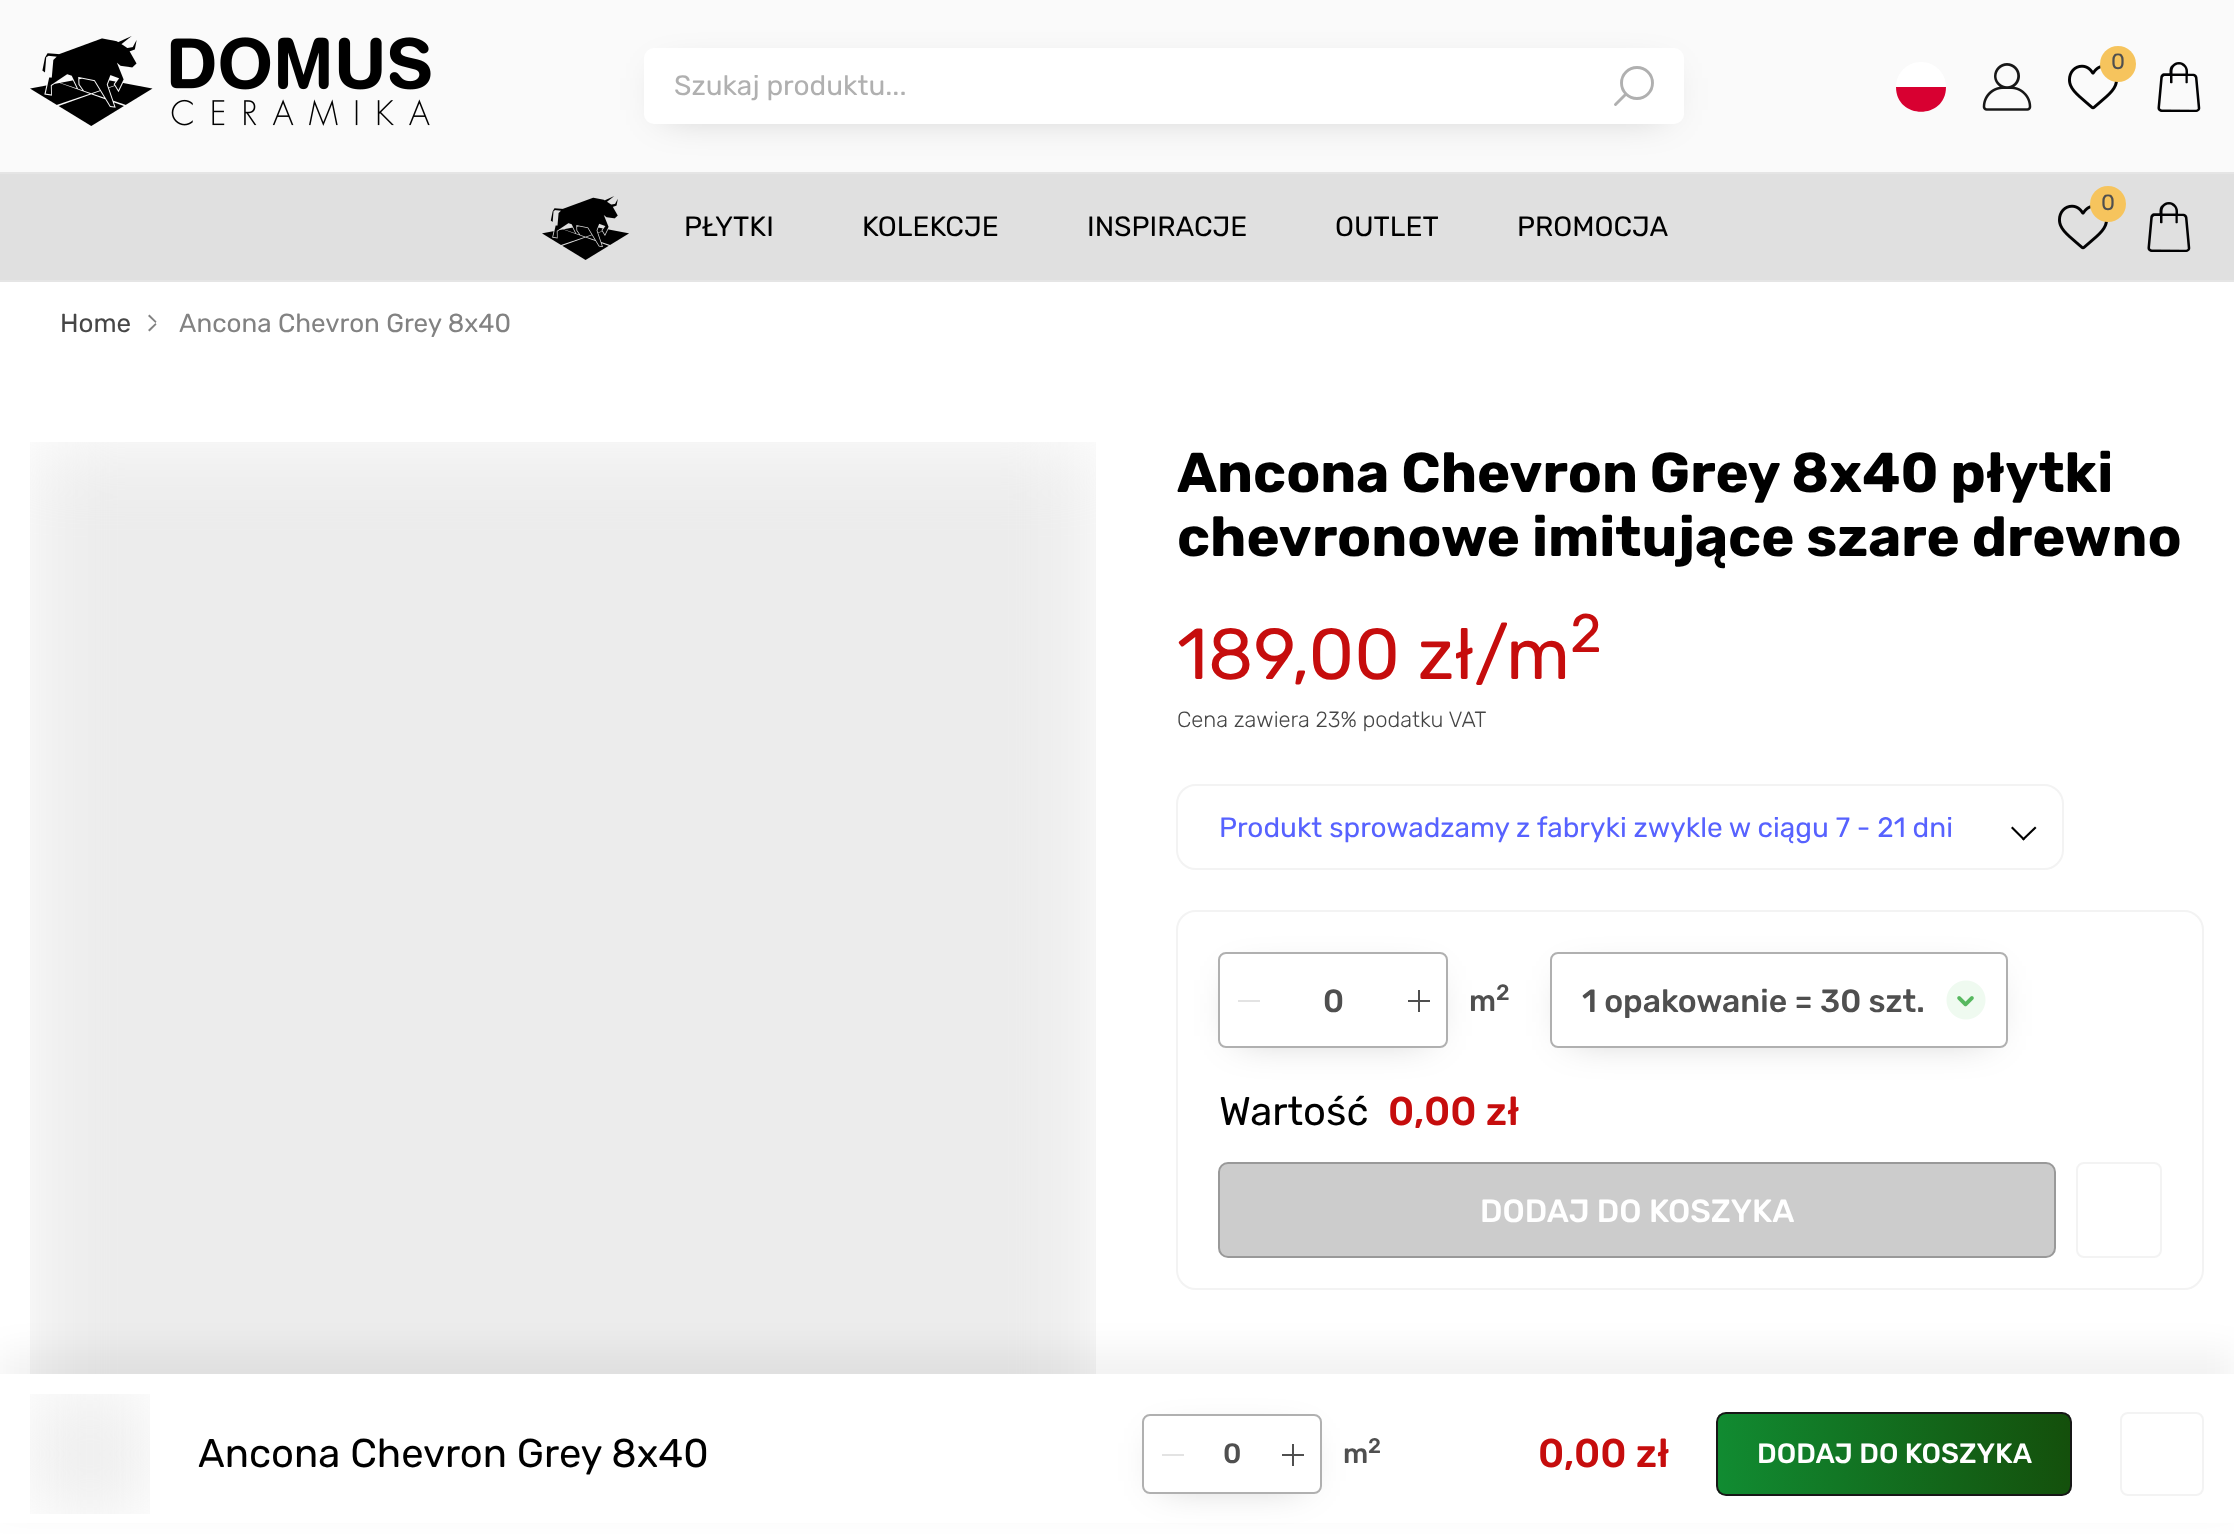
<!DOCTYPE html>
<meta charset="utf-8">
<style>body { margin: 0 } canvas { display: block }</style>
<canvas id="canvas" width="2234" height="1534"></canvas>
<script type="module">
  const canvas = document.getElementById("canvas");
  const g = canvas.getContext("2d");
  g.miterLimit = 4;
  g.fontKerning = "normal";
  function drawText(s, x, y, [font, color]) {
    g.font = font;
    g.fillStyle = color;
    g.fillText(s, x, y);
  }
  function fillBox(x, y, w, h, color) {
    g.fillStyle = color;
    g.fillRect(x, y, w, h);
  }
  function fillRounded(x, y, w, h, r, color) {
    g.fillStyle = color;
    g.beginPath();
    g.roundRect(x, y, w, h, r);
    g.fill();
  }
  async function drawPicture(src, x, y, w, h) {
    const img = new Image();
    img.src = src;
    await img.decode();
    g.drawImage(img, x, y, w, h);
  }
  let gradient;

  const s1 = ["22px Rubik", "#4F4F4F"];
  const s2 = ["28px Rubik", "#B0B0B0"];
  const s3 = ["28px Rubik", "#000000"];
  const s4 = ["26px Rubik", "#464646"];
  const s5 = ["26px Rubik", "#828282"];
  const s6 = ["bold 56px Rubik", "#000000"];
  const s7 = ["72px Rubik", "#C60D0D"];
  const s8 = ["54px Rubik", "#C60D0D"];
  const s9 = ["300 22px Rubik", "#464646"];
  const s10 = ["28px Rubik", "#5762FF"];
  const s11 = ["500 32px Rubik", "#4F4F4F"];
  const s12 = ["500 22px Rubik", "#4F4F4F"];
  const s13 = ["500 30px Rubik", "#4F4F4F"];
  const s14 = ["40px Rubik", "#000000"];
  const s15 = ["500 40px Rubik", "#C60D0D"];
  const s16 = ["500 32px Rubik", "#FFFFFF"];
  const s17 = ["500 28px Rubik", "#4F4F4F"];
  const s18 = ["500 21px Rubik", "#4F4F4F"];
  const s19 = ["500 28px Rubik", "#FFFFFF"];

  fillBox(0, 0, 2234, 1534, "#FFFFFF");
  fillBox(0, 0, 2234, 172, "#FAFAFA");
  await drawPicture("pic1.png", 30, 36, 401, 90);
  g.fillStyle = "#FFFFFF";
  g.beginPath();
  g.moveTo(1921, 62);
  g.bezierCurveTo(1935, 62, 1946, 73, 1946, 87);
  g.lineTo(1896, 87);
  g.bezierCurveTo(1896, 73, 1907, 62, 1921, 62);
  g.closePath();
  g.fill();
  g.fillStyle = "#D80031";
  g.beginPath();
  g.moveTo(1946, 87);
  g.lineTo(1896, 87);
  g.bezierCurveTo(1896, 120, 1946, 120, 1946, 87);
  g.closePath();
  g.fill();
  await drawPicture("pic2.png", 1982, 63, 50, 48);
  await drawPicture("pic3.png", 2068, 64, 50, 46);
  g.fillStyle = "#F6C45D";
  g.beginPath();
  g.arc(2118, 64, 18, 0, Math.PI * 2);
  g.fill();
  drawText("0", 2111, 69, s1);
  await drawPicture("pic4.png", 2157, 62, 44, 50);
  g.fillStyle = "rgba(0, 0, 0, 0.25)";
  g.filter = "blur(20px)";
  g.beginPath();
  g.rect(664, 76, 1000, 36);
  g.fill();
  g.filter = "none";
  fillRounded(644, 48, 1040, 76, 10, "#FFFFFF");
  drawText("Szukaj produktu...", 674, 95, s2);
  g.beginPath();
  g.arc(1637, 83, 15.5, 0, Math.PI * 2);
  g.strokeStyle = "#B0B0B0";
  g.lineWidth = 2.9;
  g.stroke();
  g.beginPath();
  g.moveTo(1625.5, 94.5);
  g.lineTo(1615.5, 104.5);
  g.lineCap = "round";
  g.stroke();
  fillBox(0, 174, 2234, 106, "#E0E0E0");
  fillBox(0, 172, 2234, 2, "#E5E5E5");
  fillBox(0, 280, 2234, 2, "#E5E5E5");
  await drawPicture("pic5.png", 2058, 204, 50, 46);
  g.fillStyle = "#F6C45D";
  g.beginPath();
  g.arc(2108, 204, 18, 0, Math.PI * 2);
  g.fill();
  drawText("0", 2101, 210, s1);
  await drawPicture("pic6.png", 2147, 202, 44, 50);
  await drawPicture("pic7.png", 542, 196, 87, 64);
  drawText("PŁYTKI", 684, 236, s3);
  drawText("KOLEKCJE", 862, 236, s3);
  drawText("INSPIRACJE", 1087, 236, s3);
  drawText("OUTLET", 1335, 236, s3);
  drawText("PROMOCJA", 1517, 236, s3);
  drawText("Home", 60, 332, s4);
  g.fillStyle = "#828282";
  g.beginPath();
  g.moveTo(148, 316);
  g.lineTo(149.5, 314.5);
  g.lineTo(156.5, 321.5);
  g.lineTo(155.5, 323);
  g.closePath();
  g.moveTo(148, 330);
  g.lineTo(155.5, 323);
  g.lineTo(156.5, 324.5);
  g.lineTo(149.5, 331.5);
  g.closePath();
  g.fill();
  drawText("Ancona Chevron Grey 8x40", 179, 332, s5);
  await drawPicture("pic8.png", 30, 442, 1066, 932);
  drawText("Ancona Chevron Grey 8x40 płytki", 1177, 492, s6);
  drawText("chevronowe imitujące szare drewno", 1177, 556, s6);
  drawText("189,00 zł/", 1177, 679, s7);
  drawText("m", 1506, 679, s7);
  drawText("2", 1570, 652, s8);
  drawText("Cena zawiera 23% podatku VAT", 1177, 727, s9);
  g.beginPath();
  g.roundRect(1177, 785, 886, 84, 19);
  g.strokeStyle = "#F3F3F3";
  g.lineWidth = 2;
  g.stroke();
  drawText("Produkt sprowadzamy z fabryki zwykle w ciągu 7 - 21 dni", 1219, 837, s10);
  g.fillStyle = "#000000";
  g.beginPath();
  g.moveTo(2035, 826.5);
  g.lineTo(2036.5, 828);
  g.lineTo(2023.5, 840.5);
  g.lineTo(2022, 839);
  g.closePath();
  g.fill();
  g.beginPath();
  g.moveTo(2012.5, 826.5);
  g.lineTo(2025, 839);
  g.lineTo(2023.5, 840.5);
  g.lineTo(2011, 828);
  g.closePath();
  g.fill();
  g.beginPath();
  g.roundRect(1177, 911, 1026, 378, 19);
  g.stroke();
  g.save();
  g.beginPath();
  g.moveTo(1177, 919);
  g.lineTo(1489, 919);
  g.lineTo(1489, 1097);
  g.lineTo(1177, 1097);
  g.closePath();
  g.moveTo(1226, 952);
  g.lineTo(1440, 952);
  g.bezierCurveTo(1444.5, 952, 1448, 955.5, 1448, 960);
  g.lineTo(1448, 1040);
  g.bezierCurveTo(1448, 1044.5, 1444.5, 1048, 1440, 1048);
  g.lineTo(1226, 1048);
  g.bezierCurveTo(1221.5, 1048, 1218, 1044.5, 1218, 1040);
  g.lineTo(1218, 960);
  g.bezierCurveTo(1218, 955.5, 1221.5, 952, 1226, 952);
  g.closePath();
  g.clip("evenodd");
  g.fillStyle = "rgba(0, 0, 0, 0.25)";
  g.filter = "blur(20px)";
  g.beginPath();
  g.rect(1238, 980, 190, 56);
  g.fill();
  g.filter = "none";
  g.restore();
  g.beginPath();
  g.roundRect(1219, 953, 228, 94, 7);
  g.strokeStyle = "#B0B0B0";
  g.stroke();
  fillBox(1238, 1000, 22, 2, "#E3E3E3");
  drawText("0", 1323, 1012, s11);
  fillBox(1408, 1000, 22, 2, "#4F4F4F");
  fillBox(1418, 990, 2, 22, "#4F4F4F");
  drawText("2", 1496, 1000, s12);
  drawText("m", 1469, 1011, s13);
  g.save();
  g.beginPath();
  g.moveTo(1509, 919);
  g.lineTo(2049, 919);
  g.lineTo(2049, 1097);
  g.lineTo(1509, 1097);
  g.closePath();
  g.moveTo(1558, 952);
  g.lineTo(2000, 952);
  g.bezierCurveTo(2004.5, 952, 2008, 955.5, 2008, 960);
  g.lineTo(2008, 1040);
  g.bezierCurveTo(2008, 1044.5, 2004.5, 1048, 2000, 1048);
  g.lineTo(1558, 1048);
  g.bezierCurveTo(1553.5, 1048, 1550, 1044.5, 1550, 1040);
  g.lineTo(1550, 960);
  g.bezierCurveTo(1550, 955.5, 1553.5, 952, 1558, 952);
  g.closePath();
  g.clip("evenodd");
  g.fillStyle = "rgba(0, 0, 0, 0.25)";
  g.filter = "blur(20px)";
  g.beginPath();
  g.rect(1570, 980, 418, 56);
  g.fill();
  g.filter = "none";
  g.restore();
  g.beginPath();
  g.roundRect(1551, 953, 456, 94, 7);
  g.stroke();
  drawText("1 opakowanie = 30 szt.", 1582, 1012, s11);
  await drawPicture("pic9.png", 1946, 980, 40, 40);
  drawText("Wartość", 1219, 1125, s14);
  drawText("0,00 zł", 1388, 1125, s15);
  g.fillStyle = "#CCCCCC";
  g.beginPath();
  g.roundRect(1219, 1163, 836, 94, 9);
  g.fill();
  g.strokeStyle = "#999999";
  g.stroke();
  drawText("DODAJ DO KOSZYKA", 1480, 1222, s16);
  g.beginPath();
  g.roundRect(2077, 1163, 84, 94, 7);
  g.strokeStyle = "#F3F3F3";
  g.stroke();
  g.fillStyle = "rgba(0, 0, 0, 0.05)";
  g.filter = "blur(16px)";
  g.beginPath();
  g.rect(0, 1350, 2234, 160);
  g.fill();
  g.filter = "none";
  fillBox(0, 1374, 2234, 149, "#FFFFFF");
  await drawPicture("pic10.png", 30, 1394, 120, 120);
  drawText("Ancona Chevron Grey 8x40", 198, 1467, s14);
  g.save();
  g.beginPath();
  g.moveTo(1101, 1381);
  g.lineTo(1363, 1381);
  g.lineTo(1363, 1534);
  g.lineTo(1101, 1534);
  g.closePath();
  g.moveTo(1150, 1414);
  g.lineTo(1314, 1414);
  g.bezierCurveTo(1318.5, 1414, 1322, 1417.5, 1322, 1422);
  g.lineTo(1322, 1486);
  g.bezierCurveTo(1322, 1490.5, 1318.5, 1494, 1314, 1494);
  g.lineTo(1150, 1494);
  g.bezierCurveTo(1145.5, 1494, 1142, 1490.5, 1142, 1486);
  g.lineTo(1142, 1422);
  g.bezierCurveTo(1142, 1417.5, 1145.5, 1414, 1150, 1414);
  g.closePath();
  g.clip("evenodd");
  g.fillStyle = "rgba(0, 0, 0, 0.25)";
  g.filter = "blur(20px)";
  g.beginPath();
  g.rect(1162, 1442, 140, 40);
  g.fill();
  g.filter = "none";
  g.restore();
  g.beginPath();
  g.roundRect(1143, 1415, 178, 78, 7);
  g.strokeStyle = "#B0B0B0";
  g.stroke();
  fillBox(1162, 1454, 22, 2, "#E3E3E3");
  drawText("0", 1223, 1463, s17);
  fillBox(1282, 1454, 22, 2, "#4F4F4F");
  fillBox(1292, 1444, 2, 22, "#4F4F4F");
  drawText("2", 1368, 1453, s18);
  drawText("m", 1343, 1463, s17);
  drawText("0,00 zł", 1538, 1467, s15);
  g.save();
  g.beginPath();
  g.roundRect(1716, 1412, 356, 84, 10);
  g.clip();
  gradient = g.createLinearGradient(2072, 1433, 1716, 1475);
  gradient.addColorStop(0, "#144F0B");
  gradient.addColorStop(1, "#118C32");
  g.fillStyle = gradient;
  g.fillRect(1718, 1414, 352, 80);
  g.restore();
  g.beginPath();
  g.roundRect(1717, 1413, 354, 82, 9);
  g.strokeStyle = "#171717";
  g.stroke();
  drawText("DODAJ DO KOSZYKA", 1757, 1463, s19);
  g.beginPath();
  g.roundRect(2121, 1413, 82, 82, 7);
  g.strokeStyle = "#F3F3F3";
  g.stroke();
</script>
